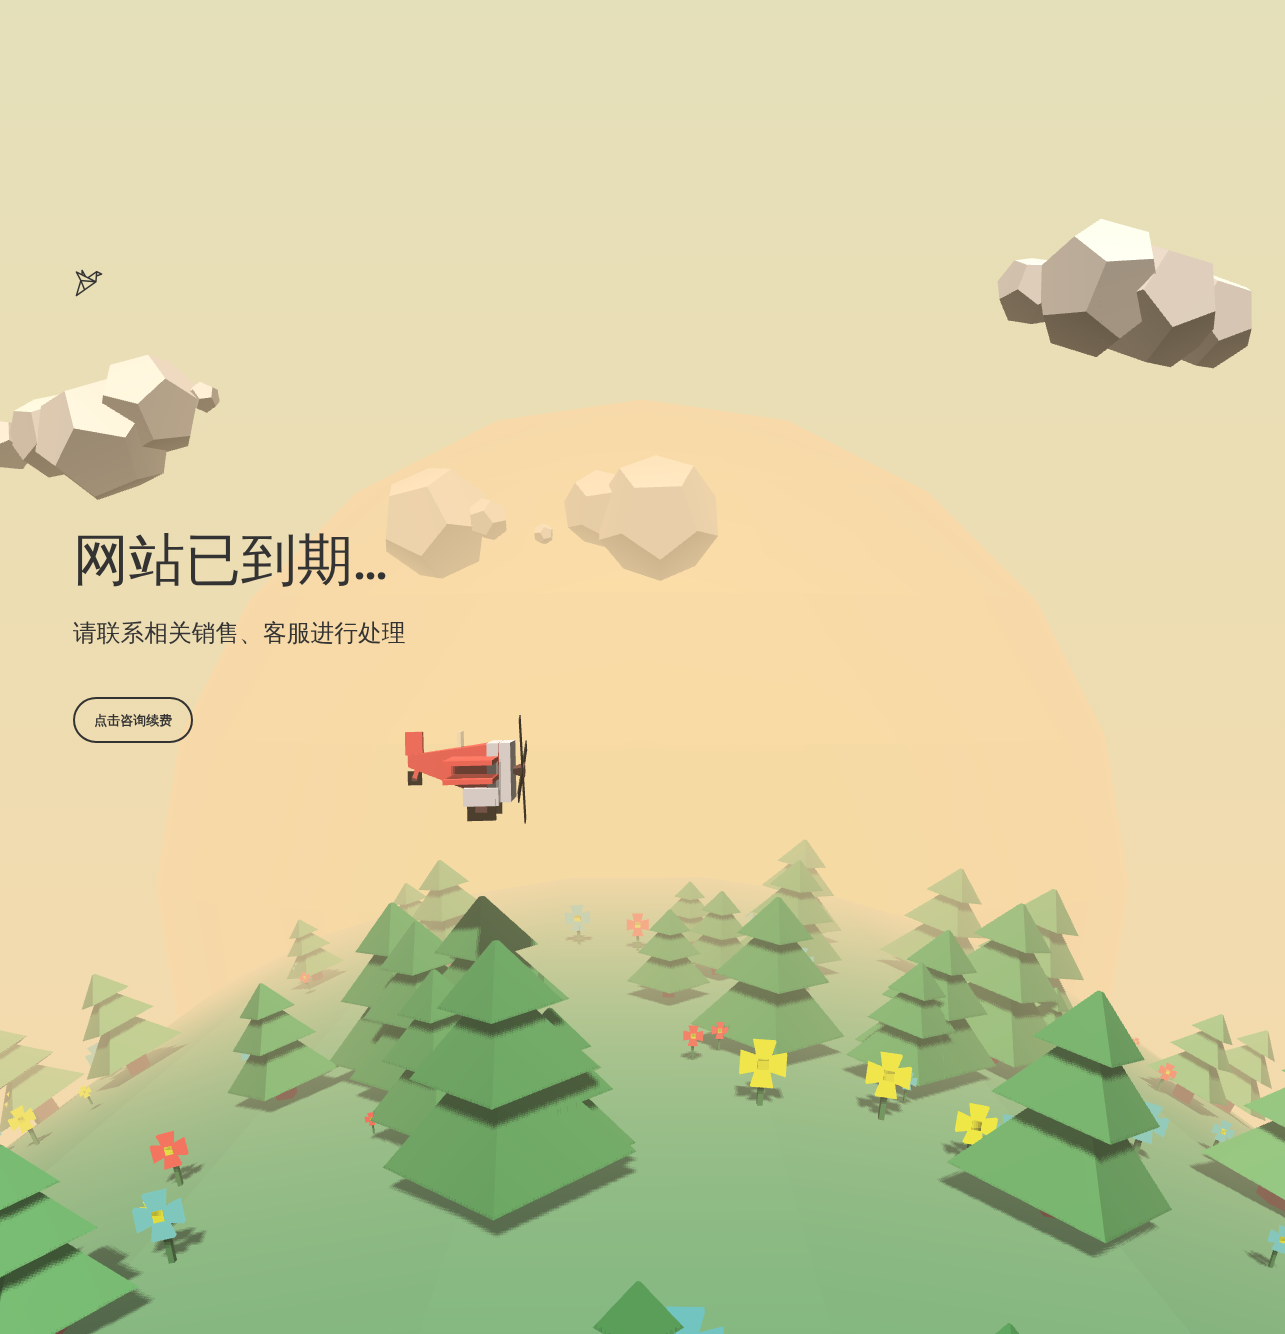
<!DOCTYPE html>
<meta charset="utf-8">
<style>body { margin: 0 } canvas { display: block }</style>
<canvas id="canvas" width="1285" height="1334"></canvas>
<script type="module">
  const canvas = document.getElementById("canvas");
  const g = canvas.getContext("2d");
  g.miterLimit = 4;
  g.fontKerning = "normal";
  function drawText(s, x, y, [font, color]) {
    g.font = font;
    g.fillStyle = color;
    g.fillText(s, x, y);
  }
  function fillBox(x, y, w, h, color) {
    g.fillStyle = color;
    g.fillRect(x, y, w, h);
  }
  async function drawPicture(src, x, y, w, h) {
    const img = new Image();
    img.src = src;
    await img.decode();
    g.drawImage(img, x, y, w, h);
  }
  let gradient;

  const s1 = ["500 56px WenQuanYi Zen Hei", "#333333"];
  const s2 = ["56px Voltaire", "#333333"];
  const s3 = ["500 23.75px WenQuanYi Zen Hei", "#333333"];
  const s4 = ["bold 13px WenQuanYi Zen Hei", "#333333"];

  fillBox(0, 0, 1285, 1334, "#FFFFFF");
  gradient = g.createLinearGradient(642, 0, 643, 1334);
  gradient.addColorStop(0, "#E4E0BA");
  gradient.addColorStop(1, "#F7D9AA");
  g.fillStyle = gradient;
  g.fillRect(0, 0, 1285, 1148);
  await drawPicture("pic1.png", 0, 218, 1285, 1116);
  await drawPicture("pic2.png", 75, 269, 28, 28);
  drawText("网站已到期", 73, 579, s1);
  drawText("...", 353, 579, s2);
  drawText("请联系相关销售、客服进行处理", 73, 641, s3);
  g.beginPath();
  g.roundRect(74, 698, 118, 44, 22);
  g.strokeStyle = "#333333";
  g.lineWidth = 2;
  g.stroke();
  drawText("点击咨询续费", 94, 725, s4);
</script>
